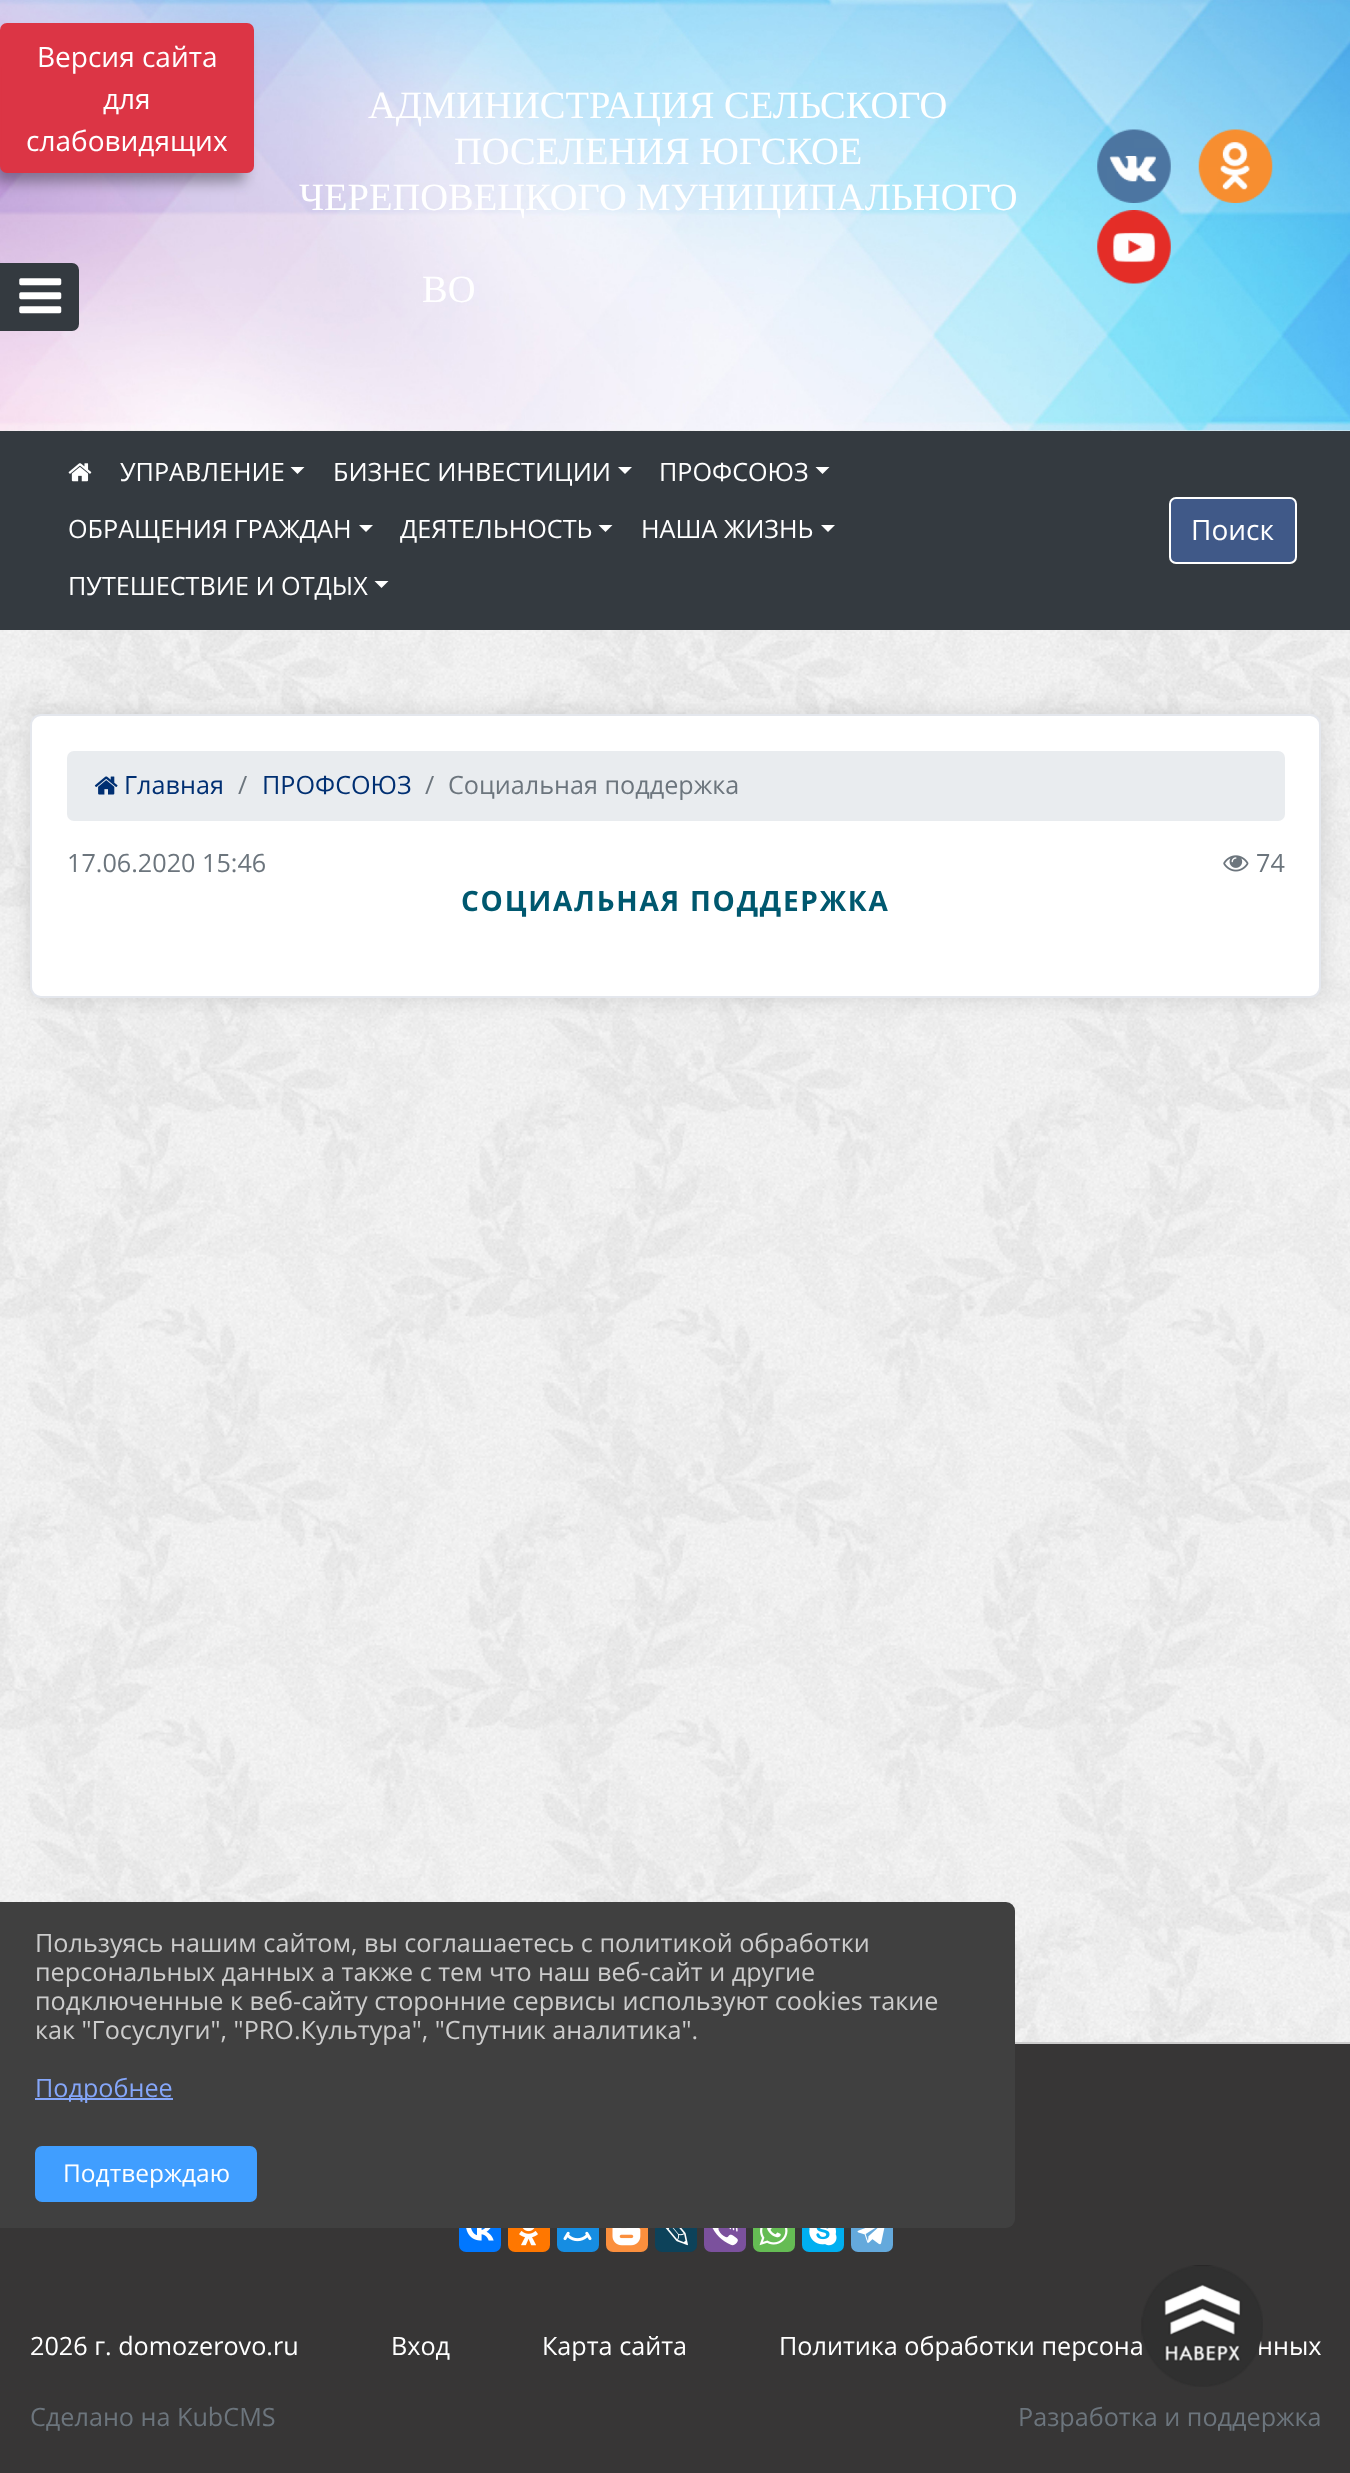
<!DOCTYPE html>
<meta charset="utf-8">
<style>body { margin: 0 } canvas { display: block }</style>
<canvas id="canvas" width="1350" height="2473"></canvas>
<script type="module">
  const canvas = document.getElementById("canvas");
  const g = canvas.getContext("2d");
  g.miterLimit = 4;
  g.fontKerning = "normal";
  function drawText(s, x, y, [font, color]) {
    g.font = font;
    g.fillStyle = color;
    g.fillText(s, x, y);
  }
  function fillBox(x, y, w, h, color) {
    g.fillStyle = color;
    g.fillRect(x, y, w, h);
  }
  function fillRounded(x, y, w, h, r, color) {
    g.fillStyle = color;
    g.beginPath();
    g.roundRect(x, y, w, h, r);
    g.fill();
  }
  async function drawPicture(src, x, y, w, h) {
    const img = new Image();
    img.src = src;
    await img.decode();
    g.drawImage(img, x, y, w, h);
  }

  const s1 = ["28px Open Sans", "#FFFFFF"];
  const s2 = ["38.5px Liberation Serif", "#FFFFFF"];
  const s3 = ["25.2px Open Sans", "#FFFFFF"];
  const s4 = ["25.2px Open Sans", "#002F72"];
  const s5 = ["25.2px Open Sans", "#6C757D"];
  const s6 = ["bold 28px Open Sans", "#00586F"];
  const s7 = ["25.2px Open Sans", "#CCCCCC"];
  const s8 = ["25.2px Open Sans", "#85A6F9"];
  const s9 = ["24.5px Open Sans", "#FFFFFF"];

  fillBox(0, 0, 1350, 2473, "#FFFFFF");
  await drawPicture("pic1.png", 0, 430, 1350, 1612);
  await drawPicture("pic2.png", 0, 0, 1350, 431);
  g.fillStyle = "rgba(0, 0, 0, 0.35)";
  g.filter = "blur(7px)";
  g.beginPath();
  g.roundRect(-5, 35, 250, 147, 5);
  g.fill();
  g.filter = "none";
  g.fillStyle = "#DC3545";
  g.beginPath();
  g.roundRect(1, 24, 252, 148, 6);
  g.fill();
  g.strokeStyle = "#DC3545";
  g.lineWidth = 2;
  g.stroke();
  drawText("Версия сайта", 37, 67, s1);
  drawText("для", 103, 109, s1);
  drawText("слабовидящих", 26, 151, s1);
  drawText("АДМИНИСТРАЦИЯ СЕЛЬСКОГО", 368, 118, s2);
  drawText("ПОСЕЛЕНИЯ ЮГСКОЕ", 454, 164, s2);
  drawText("ЧЕРЕПОВЕЦКОГО МУНИЦИПАЛЬНОГО", 299, 210, s2);
  drawText("ВО", 422, 302, s2);
  await drawPicture("pic3.png", 1097, 129, 74, 74);
  await drawPicture("pic4.png", 1198, 129, 75, 74);
  await drawPicture("pic5.png", 1097, 210, 74, 74);
  fillBox(0, 431, 1350, 199, "#343A40");
  await drawPicture("pic6.png", 68, 463, 24, 19);
  drawText("УПРАВЛЕНИЕ", 120, 481, s3);
  g.beginPath();
  g.moveTo(290.5, 467);
  g.lineTo(304.5, 467);
  g.lineTo(297.5, 474);
  g.closePath();
  g.fill();
  drawText("БИЗНЕС ИНВЕСТИЦИИ", 333, 481, s3);
  g.beginPath();
  g.moveTo(618, 467);
  g.lineTo(632, 467);
  g.lineTo(625, 474);
  g.closePath();
  g.fill();
  drawText("ПРОФСОЮЗ", 659, 481, s3);
  g.beginPath();
  g.moveTo(815.5, 467);
  g.lineTo(829.5, 467);
  g.lineTo(822.5, 474);
  g.closePath();
  g.fill();
  drawText("ОБРАЩЕНИЯ ГРАЖДАН", 68, 538, s3);
  g.beginPath();
  g.moveTo(359, 525);
  g.lineTo(373, 525);
  g.lineTo(366, 532);
  g.closePath();
  g.fill();
  drawText("ДЕЯТЕЛЬНОСТЬ", 400, 538, s3);
  g.beginPath();
  g.moveTo(598.5, 525);
  g.lineTo(612.5, 525);
  g.lineTo(605.5, 532);
  g.closePath();
  g.fill();
  drawText("НАША ЖИЗНЬ", 641, 538, s3);
  g.beginPath();
  g.moveTo(821, 525);
  g.lineTo(835, 525);
  g.lineTo(828, 532);
  g.closePath();
  g.fill();
  drawText("ПУТЕШЕСТВИЕ И ОТДЫХ", 68, 595, s3);
  g.beginPath();
  g.moveTo(374.5, 581);
  g.lineTo(388.5, 581);
  g.lineTo(381.5, 588);
  g.closePath();
  g.fill();
  g.fillStyle = "#405988";
  g.beginPath();
  g.roundRect(1170, 498, 126, 65, 6);
  g.fill();
  g.strokeStyle = "#FFFFFF";
  g.stroke();
  drawText("Поиск", 1191, 540, s1);
  g.fillStyle = "rgba(0, 0, 0, 0.12)";
  g.filter = "blur(10.5px)";
  g.beginPath();
  g.roundRect(30, 714, 1291, 284, 11);
  g.fill();
  g.filter = "none";
  g.fillStyle = "#FFFFFF";
  g.beginPath();
  g.roundRect(31, 715, 1289, 282, 10);
  g.fill();
  g.strokeStyle = "#E4E7ED";
  g.stroke();
  fillRounded(67, 751, 1218, 70, 7, "#E9ECEF");
  await drawPicture("pic7.png", 94, 776, 24, 19);
  drawText("Главная", 124, 794, s4);
  drawText("/", 238, 794, s5);
  drawText("ПРОФСОЮЗ", 262, 794, s4);
  drawText("/", 425, 794, s5);
  drawText("Социальная поддержка", 448, 794, s5);
  drawText("17.06.2020 15:46", 67, 872, s5);
  await drawPicture("pic8.png", 1223, 855, 26, 17);
  drawText("74", 1256, 872, s5);
  g.letterSpacing = "1.75px";
  drawText("СОЦИАЛЬНАЯ ПОДДЕРЖКА", 461, 911, s6);
  fillBox(0, 2044, 1350, 429, "#373636");
  fillBox(1015, 2042, 335, 2, "#CCCCCC");
  fillRounded(459, 2210, 42, 42, 7, "#0077FF");
  await drawPicture("pic9.png", 466, 2228, 28, 13);
  fillRounded(508, 2210, 42, 42, 7, "#FF7700");
  await drawPicture("pic10.png", 519, 2228, 19, 18);
  fillRounded(557, 2210, 42, 42, 7, "#168DE2");
  await drawPicture("pic11.png", 563, 2231, 29, 11);
  fillRounded(606, 2210, 42, 42, 7, "#FB8F3D");
  await drawPicture("pic12.png", 612, 2228, 29, 18);
  fillRounded(655, 2210, 42, 42, 7, "#0D425A");
  await drawPicture("pic13.png", 665, 2228, 23, 18);
  fillRounded(704, 2210, 42, 42, 7, "#7B519D");
  await drawPicture("pic14.png", 712, 2228, 26, 18);
  fillRounded(753, 2210, 42, 42, 7, "#65BC54");
  await drawPicture("pic15.png", 759, 2228, 29, 18);
  fillRounded(802, 2210, 42, 42, 7, "#00AFF0");
  await drawPicture("pic16.png", 809, 2228, 28, 18);
  fillRounded(851, 2210, 42, 42, 7, "#64A9DC");
  await drawPicture("pic17.png", 857, 2228, 28, 17);
  g.letterSpacing = "0px";
  drawText("Политика обработки персона", 779, 2355, s3);
  drawText("нных", 1257, 2355, s3);
  await drawPicture("pic18.png", 1141, 2265, 122, 122);
  drawText("2026 г. domozerovo.ru", 30, 2355, s3);
  drawText("Вход", 391, 2355, s3);
  drawText("Карта сайта", 542, 2355, s3);
  drawText("Сделано на KubCMS", 30, 2426, s5);
  drawText("Разработка и поддержка", 1018, 2426, s5);
  g.fillStyle = "#343A40";
  g.beginPath();
  g.roundRect(1, 264, 77, 66, [0, 6, 6, 0]);
  g.fill();
  g.strokeStyle = "#343A40";
  g.stroke();
  await drawPicture("pic19.png", 19, 278, 43, 36);
  g.fillStyle = "#404040";
  g.beginPath();
  g.roundRect(0, 1902, 1015, 326, [0, 9, 9, 0]);
  g.fill();
  drawText("Пользуясь нашим сайтом, вы соглашаетесь с политикой обработки", 35, 1952, s7);
  drawText("персональных данных а также с тем что наш веб-сайт и другие", 35, 1981, s7);
  drawText("подключенные к веб-сайту сторонние сервисы используют cookies такие", 35, 2010, s7);
  drawText("как \"Госуслуги\", \"PRO.Культура\", \"Спутник аналитика\".", 35, 2039, s7);
  fillBox(35, 2098, 138, 2, "#85A6F9");
  drawText("Подробнее", 35, 2097, s8);
  g.fillStyle = "#409EFF";
  g.beginPath();
  g.roundRect(36, 2147, 220, 54, 6);
  g.fill();
  g.strokeStyle = "#409EFF";
  g.stroke();
  drawText("Подтверждаю", 63, 2182, s9);
</script>
